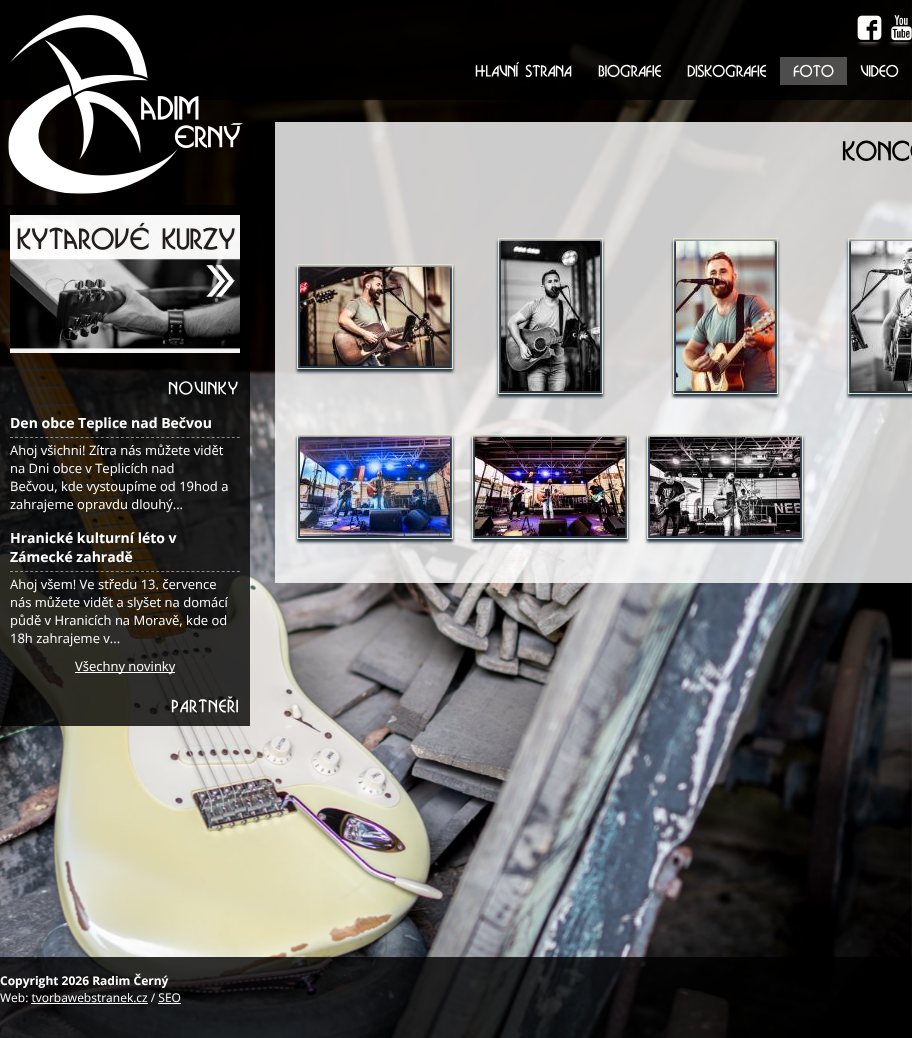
<!DOCTYPE html>
<meta charset="utf-8">
<style>body { margin: 0 } canvas { display: block }</style>
<canvas id="canvas" width="912" height="1038"></canvas>
<script type="module">
  const canvas = document.getElementById("canvas");
  const g = canvas.getContext("2d");
  g.miterLimit = 4;
  g.fontKerning = "normal";
  function drawText(s, x, y, [font, color]) {
    g.font = font;
    g.fillStyle = color;
    g.fillText(s, x, y);
  }
  function fillBox(x, y, w, h, color) {
    g.fillStyle = color;
    g.fillRect(x, y, w, h);
  }
  async function drawPicture(src, x, y, w, h) {
    const img = new Image();
    img.src = src;
    await img.decode();
    g.drawImage(img, x, y, w, h);
  }

  const s1 = ["bold 14px Open Sans", "#FFFFFF"];
  const s2 = ["13px Open Sans", "#FFFFFF"];
  const s3 = ["bold 12px Open Sans", "#FFFFFF"];
  const s4 = ["12px Open Sans", "#FFFFFF"];

  fillBox(0, 0, 912, 1038, "#FFFFFF");
  await drawPicture("pic1.png", 911, 0, 1, 1038);
  await drawPicture("pic2.png", 0, 0, 912, 1038);
  fillBox(0, 0, 912, 100, "rgba(0, 0, 0, 0.8)");
  await drawPicture("pic3.png", 8, 15, 235, 179);
  g.save();
  g.beginPath();
  g.rect(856, 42, 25, 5);
  g.clip();
  g.fillStyle = "rgba(255, 255, 255, 0.75)";
  g.filter = "blur(2.5px)";
  g.beginPath();
  g.rect(860, 25, 17, 17);
  g.fill();
  g.filter = "none";
  g.restore();
  await drawPicture("pic4.png", 857, 15, 25, 25);
  g.save();
  g.beginPath();
  g.rect(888, 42, 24, 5);
  g.clip();
  g.fillStyle = "rgba(255, 255, 255, 0.75)";
  g.filter = "blur(2.5px)";
  g.beginPath();
  g.rect(892, 25, 17, 17);
  g.fill();
  g.filter = "none";
  g.restore();
  await drawPicture("pic5.png", 891, 15, 21, 27);
  await drawPicture("pic6.png", 475, 62, 44, 15);
  await drawPicture("pic7.png", 525, 64, 47, 13);
  await drawPicture("pic8.png", 598, 64, 63, 13);
  await drawPicture("pic9.png", 687, 64, 79, 13);
  fillBox(780, 57, 67, 28, "rgba(255, 255, 255, 0.3)");
  await drawPicture("pic10.png", 793, 64, 41, 13);
  await drawPicture("pic11.png", 860, 64, 39, 13);
  fillBox(0, 205, 250, 521, "rgba(0, 0, 0, 0.8)");
  await drawPicture("pic12.png", 10, 215, 230, 138);
  await drawPicture("pic13.png", 168, 381, 70, 14);
  g.beginPath();
  g.moveTo(10, 437.5);
  g.lineTo(240, 437.5);
  g.strokeStyle = "rgba(255, 255, 255, 0.5)";
  g.setLineDash([3, 2.04]);
  g.stroke();
  drawText("Den obce Teplice nad Bečvou", 10, 428, s1);
  drawText("Ahoj všichni! Zítra nás můžete vidět", 10, 455, s2);
  drawText("na Dni obce v Teplicích nad", 10, 473, s2);
  drawText("Bečvou, kde vystoupíme od 19hod a", 10, 491, s2);
  drawText("zahrajeme opravdu dlouhý...", 10, 509, s2);
  g.beginPath();
  g.moveTo(10, 571.5);
  g.lineTo(240, 571.5);
  g.stroke();
  drawText("Hranické kulturní léto v", 10, 543, s1);
  drawText("Zámecké zahradě", 10, 562, s1);
  drawText("Ahoj všem! Ve středu 13. července", 10, 589, s2);
  drawText("nás můžete vidět a slyšet na domácí", 10, 607, s2);
  drawText("půdě v Hranicích na Moravě, kde od", 10, 625, s2);
  drawText("18h zahrajeme v...", 10, 643, s2);
  fillBox(75, 672, 100, 1, "#FFFFFF");
  drawText("Všechny novinky", 75, 671, s2);
  await drawPicture("pic14.png", 171, 696, 67, 17);
  fillBox(275, 122, 637, 461, "rgba(255, 255, 255, 0.8)");
  await drawPicture("pic15.png", 842, 140, 70, 21);
  g.fillStyle = "#273748";
  g.filter = "blur(1.5px)";
  g.beginPath();
  g.rect(297, 267, 156, 105);
  g.fill();
  g.filter = "none";
  g.strokeStyle = "#E6E5C7";
  g.setLineDash([]);
  g.strokeRect(297.5, 264.5, 155, 104);
  await drawPicture("pic16.png", 300, 267, 150, 99);
  g.filter = "blur(1.5px)";
  g.beginPath();
  g.rect(498, 241, 105, 156);
  g.fill();
  g.filter = "none";
  g.strokeRect(498.5, 238.5, 104, 155);
  await drawPicture("pic17.png", 501, 241, 99, 150);
  g.filter = "blur(1.5px)";
  g.beginPath();
  g.rect(673, 241, 105, 156);
  g.fill();
  g.filter = "none";
  g.strokeRect(673.5, 238.5, 104, 155);
  await drawPicture("pic18.png", 676, 241, 99, 150);
  g.filter = "blur(1.5px)";
  g.beginPath();
  g.rect(848, 241, 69, 156);
  g.fill();
  g.filter = "none";
  g.strokeRect(848.5, 238.5, 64, 155);
  await drawPicture("pic19.png", 851, 241, 61, 150);
  g.filter = "blur(1.5px)";
  g.beginPath();
  g.rect(297, 437, 156, 105);
  g.fill();
  g.filter = "none";
  g.strokeRect(297.5, 434.5, 155, 104);
  await drawPicture("pic20.png", 300, 437, 150, 99);
  g.filter = "blur(1.5px)";
  g.beginPath();
  g.rect(472, 437, 156, 105);
  g.fill();
  g.filter = "none";
  g.strokeRect(472.5, 434.5, 155, 104);
  await drawPicture("pic21.png", 475, 437, 150, 99);
  g.filter = "blur(1.5px)";
  g.beginPath();
  g.rect(647, 437, 156, 105);
  g.fill();
  g.filter = "none";
  g.strokeRect(647.5, 434.5, 155, 104);
  await drawPicture("pic22.png", 650, 437, 150, 99);
  fillBox(0, 957, 912, 81, "rgba(0, 0, 0, 0.8)");
  drawText("Copyright 2026 Radim Černý", 0, 985, s3);
  drawText("Web: tvorbawebstranek.cz / SEO", 0, 1002, s4);
  fillBox(31, 1003, 117, 1, "#FFFFFF");
  fillBox(158, 1003, 23, 1, "#FFFFFF");
</script>
